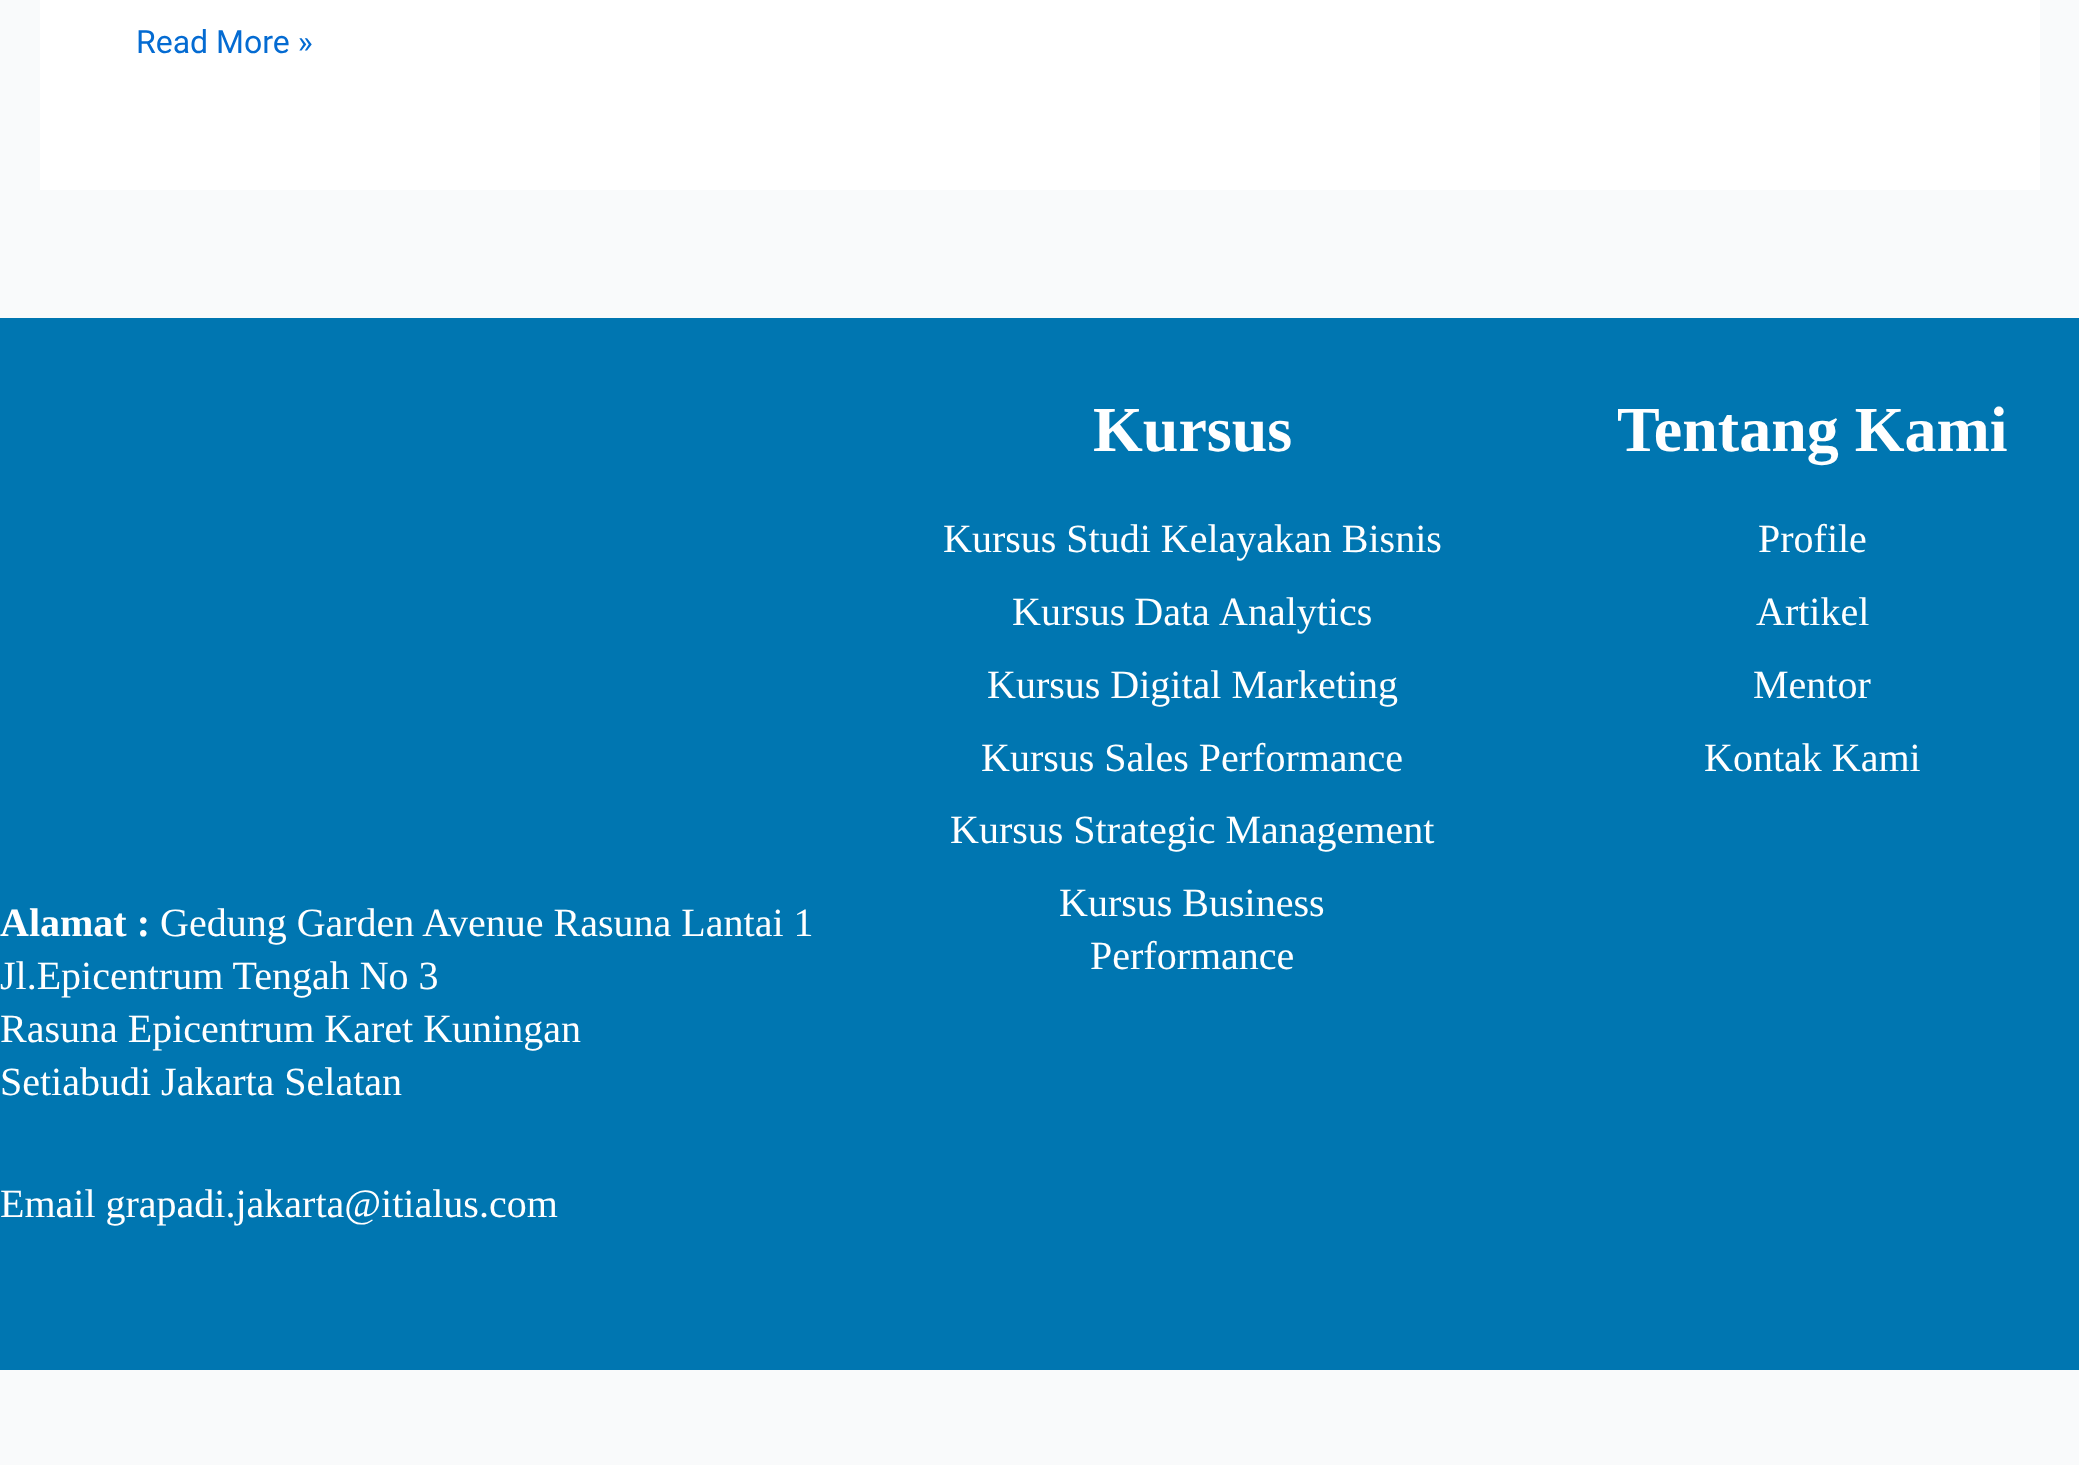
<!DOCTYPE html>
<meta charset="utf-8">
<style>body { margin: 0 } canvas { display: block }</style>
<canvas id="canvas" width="2079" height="1465"></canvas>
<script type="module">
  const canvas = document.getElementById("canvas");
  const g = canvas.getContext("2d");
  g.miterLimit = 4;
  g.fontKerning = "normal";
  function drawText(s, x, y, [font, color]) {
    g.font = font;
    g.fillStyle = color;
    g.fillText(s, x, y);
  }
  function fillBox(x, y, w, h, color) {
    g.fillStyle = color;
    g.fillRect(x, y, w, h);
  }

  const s1 = ["32px Roboto", "#046BD2"];
  const s2 = ["bold 64px Liberation Serif", "#FFFFFF"];
  const s3 = ["40px Liberation Serif", "#FFFFFF"];
  const s4 = ["bold 40px Liberation Serif", "#FFFFFF"];

  fillBox(0, 0, 2079, 1465, "#F9FAFB");
  fillBox(40, 0, 2000, 190, "#FFFFFF");
  drawText("Read More »", 136, 53, s1);
  fillBox(0, 318, 2079, 1052, "#0076B1");
  drawText("Kursus", 1093, 451, s2);
  drawText("Kursus Studi Kelayakan Bisnis", 943, 552, s3);
  g.wordSpacing = "-1px";
  drawText("Kursus Data", 1012, 625, s3);
  g.wordSpacing = "0px";
  drawText("Analytics", 1219, 625, s3);
  drawText("Kursus Digital Marketing", 987, 698, s3);
  drawText("Kursus Sales Performance", 981, 771, s3);
  drawText("Kursus Strategic Management", 950, 843, s3);
  drawText("Kursus Business", 1059, 916, s3);
  drawText("Performance", 1090, 969, s3);
  drawText("Tentang Kami", 1617, 451, s2);
  drawText("Profile", 1758, 552, s3);
  drawText("Artikel", 1756, 625, s3);
  drawText("Mentor", 1753, 698, s3);
  drawText("Kontak Kami", 1704, 771, s3);
  drawText("Alamat :", 0, 936, s4);
  drawText("Gedung Garden Avenue Rasuna Lantai 1", 160, 936, s3);
  drawText("Jl.Epicentrum Tengah No 3", 0, 989, s3);
  drawText("Rasuna Epicentrum Karet Kuningan", 0, 1042, s3);
  drawText("Setiabudi Jakarta Selatan", 0, 1095, s3);
  drawText("Email grapadi.jakarta@itialus.com", 0, 1217, s3);
</script>
